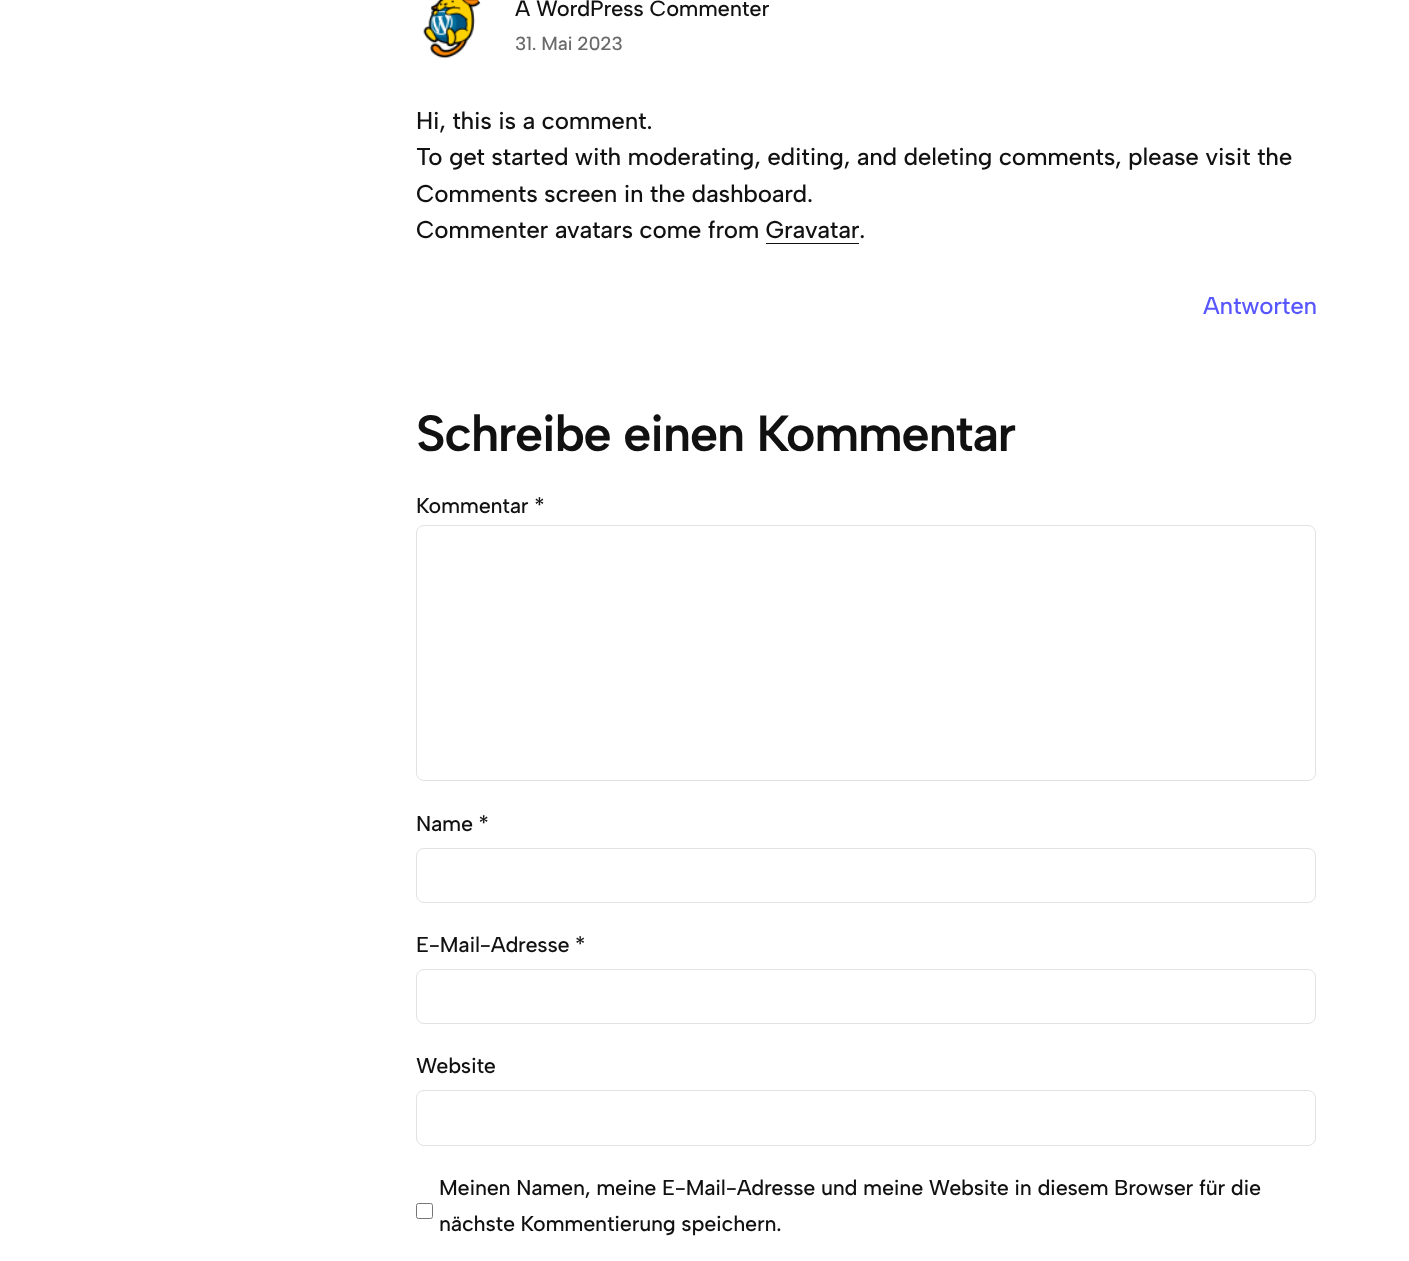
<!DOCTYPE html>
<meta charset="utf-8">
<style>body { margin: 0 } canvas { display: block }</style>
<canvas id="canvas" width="1409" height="1261"></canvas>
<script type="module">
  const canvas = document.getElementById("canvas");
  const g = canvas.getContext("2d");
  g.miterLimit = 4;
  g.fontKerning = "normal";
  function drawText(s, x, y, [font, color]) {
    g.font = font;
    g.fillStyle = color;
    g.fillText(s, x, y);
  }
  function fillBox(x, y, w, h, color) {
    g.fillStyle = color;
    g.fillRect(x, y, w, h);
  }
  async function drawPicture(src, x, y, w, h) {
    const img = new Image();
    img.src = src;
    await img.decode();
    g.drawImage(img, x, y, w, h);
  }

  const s1 = ["500 22px Albert Sans", "#111111"];
  const s2 = ["500 19px Albert Sans", "#6B6A6A"];
  const s3 = ["500 24.25px Albert Sans", "#111111"];
  const s4 = ["500 24.25px Albert Sans", "#5857FF"];
  const s5 = ["600 50.9px Albert Sans", "#111111"];
  const s6 = ["500 21.5px Albert Sans", "#111111"];

  fillBox(0, 0, 1409, 1261, "#FFFFFF");
  await drawPicture("pic1.png", 423, 0, 58, 59);
  g.letterSpacing = "-0.25px";
  drawText("A WordPress Commenter", 515, 16, s1);
  drawText("31. Mai 2023", 515, 50, s2);
  drawText("Hi, this is a comment.", 416, 129, s3);
  drawText("To get started with moderating, editing, and deleting comments, please visit the", 416, 165, s3);
  drawText("Comments screen in the dashboard.", 416, 202, s3);
  drawText("Commenter avatars come from Gravatar.", 416, 238, s3);
  fillBox(766, 243, 93, 1, "#111111");
  drawText("Antworten", 1203, 314, s4);
  g.letterSpacing = "-1.5px";
  drawText("Schreibe einen Kommentar", 416, 451, s5);
  g.letterSpacing = "-0.25px";
  drawText("Kommentar *", 416, 513, s6);
  g.beginPath();
  g.roundRect(416.5, 525.5, 899, 255, 7.5);
  g.strokeStyle = "#E2E2E2";
  g.stroke();
  drawText("Name *", 416, 831, s6);
  g.beginPath();
  g.roundRect(416.5, 848.5, 899, 54, 7.5);
  g.stroke();
  drawText("E-Mail-Adresse *", 416, 952, s6);
  g.beginPath();
  g.roundRect(416.5, 969.5, 899, 54, 7.5);
  g.stroke();
  drawText("Website", 416, 1073, s6);
  g.beginPath();
  g.roundRect(416.5, 1090.5, 899, 55, 7.5);
  g.stroke();
  g.beginPath();
  g.roundRect(416.5, 1203.5, 16, 15, 2);
  g.strokeStyle = "#767676";
  g.stroke();
  drawText("Meinen Namen, meine E-Mail-Adresse und meine Website in diesem Browser für die", 439, 1195, s6);
  drawText("nächste Kommentierung speichern.", 439, 1231, s6);
</script>
